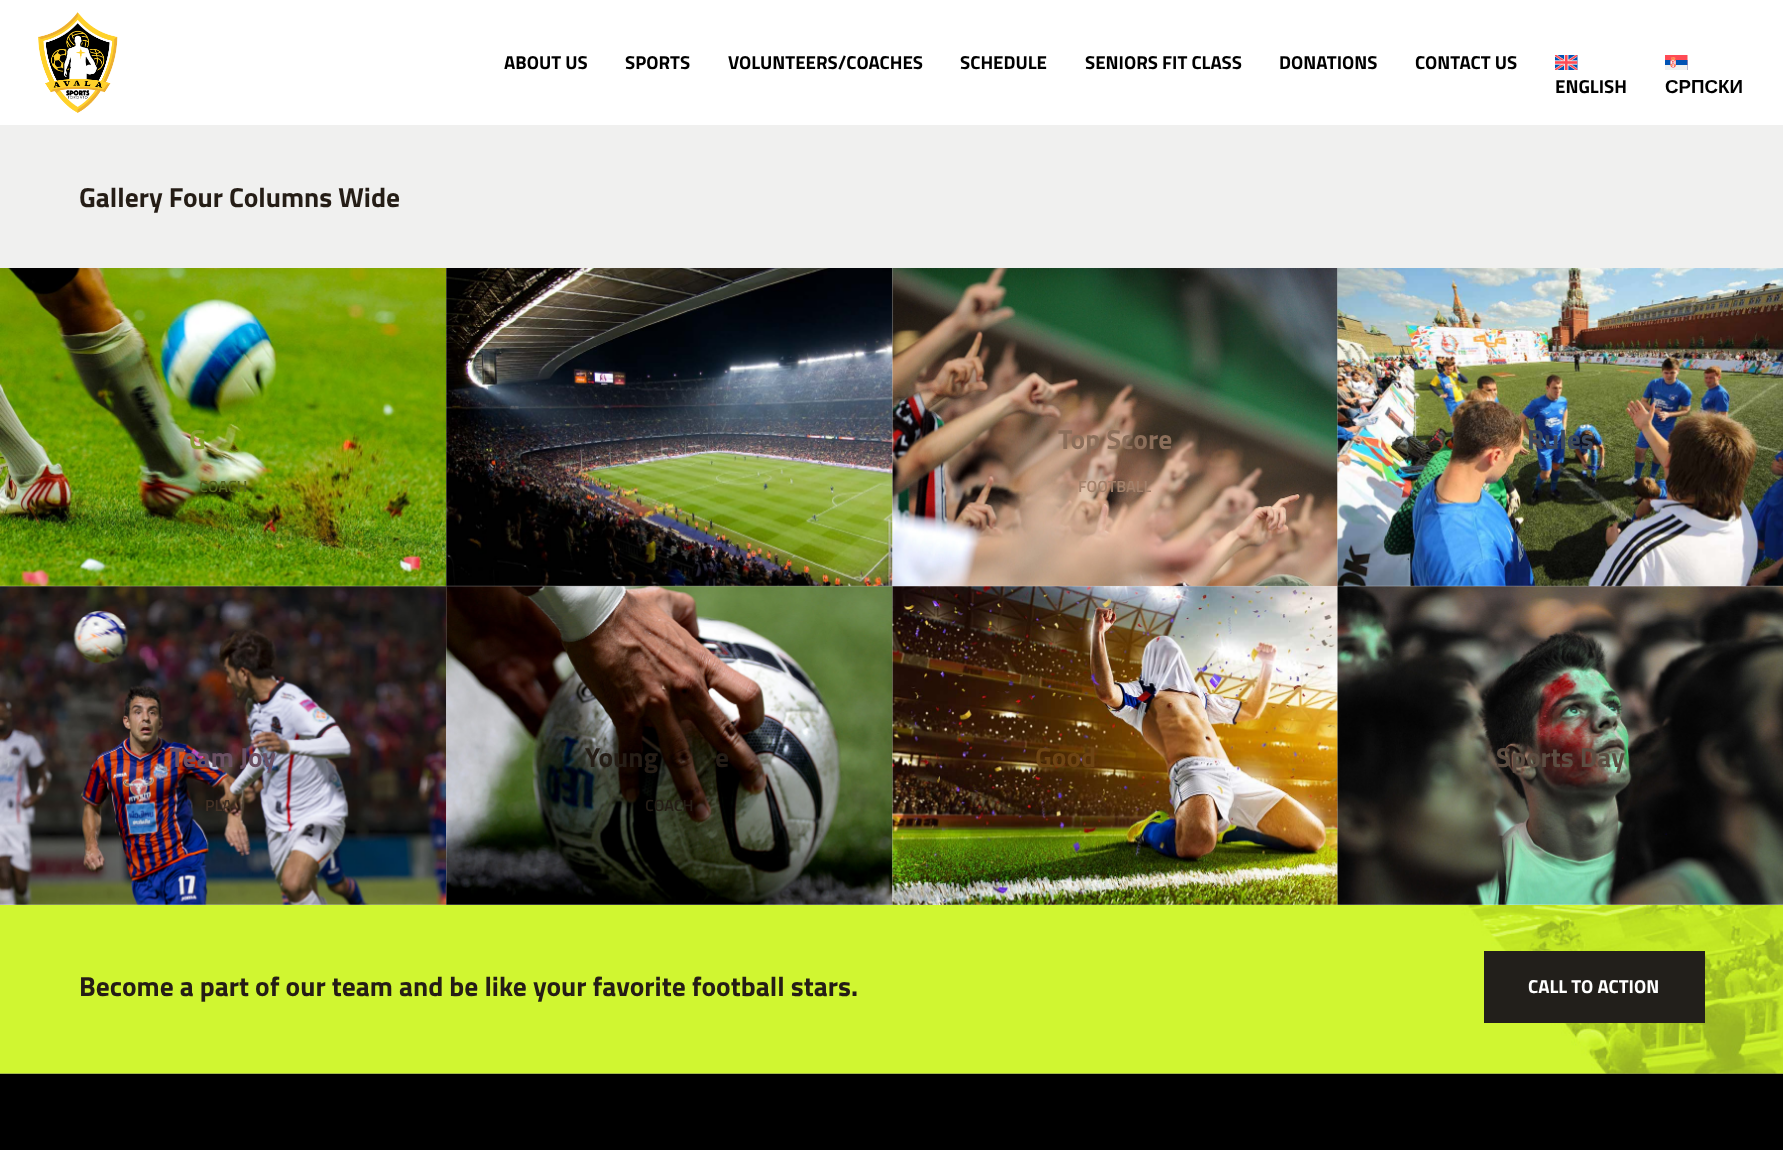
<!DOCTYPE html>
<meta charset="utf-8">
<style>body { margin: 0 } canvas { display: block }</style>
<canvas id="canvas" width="1783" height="1150"></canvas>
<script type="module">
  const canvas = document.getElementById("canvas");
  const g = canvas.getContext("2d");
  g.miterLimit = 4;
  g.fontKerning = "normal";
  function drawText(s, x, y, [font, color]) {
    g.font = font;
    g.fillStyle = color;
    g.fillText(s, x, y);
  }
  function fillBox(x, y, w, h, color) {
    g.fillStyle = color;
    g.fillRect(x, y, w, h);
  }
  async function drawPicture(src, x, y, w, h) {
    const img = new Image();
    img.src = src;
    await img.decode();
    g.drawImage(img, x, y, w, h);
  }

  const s1 = ["bold 18.75px Titillium Web", "#000000"];
  const s2 = ["bold 18.75px Liberation Sans", "#000000"];
  const s3 = ["bold 27.5px Titillium Web", "#251D16"];
  const s4 = ["bold 27.5px Titillium Web", "#88A130"];
  const s5 = ["600 16.25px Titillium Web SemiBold", "#55641F"];
  const s6 = ["bold 27.5px Titillium Web", "#8B6E5A"];
  const s7 = ["600 16.25px Titillium Web SemiBold", "#A3816B"];
  const s8 = ["bold 27.5px Titillium Web", "#3D495C"];
  const s9 = ["bold 27.5px Titillium Web", "#6B5063"];
  const s10 = ["600 16.25px Titillium Web SemiBold", "#413025"];
  const s11 = ["600 16.25px Titillium Web SemiBold", "#251D16"];
  const s12 = ["bold 27.5px Titillium Web", "#6D4414"];
  const s13 = ["bold 27.5px Titillium Web", "#5C4D42"];
  const s14 = ["bold 18.75px Titillium Web", "#FFFFFF"];

  fillBox(0, 0, 1783, 1150, "#FFFFFF");
  await drawPicture("pic1.png", 38, 12, 80, 101);
  drawText("ABOUT US", 504, 69, s1);
  drawText("SPORTS", 625, 69, s1);
  drawText("VOLUNTEERS/COACHES", 728, 69, s1);
  drawText("SCHEDULE", 960, 69, s1);
  drawText("SENIORS FIT CLASS", 1085, 69, s1);
  drawText("DONATIONS", 1279, 69, s1);
  drawText("CONTACT US", 1415, 69, s1);
  await drawPicture("pic2.png", 1555, 55, 23, 15);
  drawText("ENGLISH", 1555, 93, s1);
  await drawPicture("pic3.png", 1665, 55, 23, 15);
  drawText("СРПСКИ", 1665, 93, s2);
  fillBox(0, 125, 1783, 143, "#F0F0EF");
  drawText("Gallery Four Columns Wide", 79, 207, s3);
  await drawPicture("pic4.png", 0, 268, 447, 319);
  drawText("G", 189, 449, s4);
  drawText("COACH", 199, 492, s5);
  await drawPicture("pic5.png", 446, 268, 447, 319);
  await drawPicture("pic6.png", 892, 268, 446, 319);
  drawText("Top Score", 1058, 449, s6);
  drawText("FOOTBALL", 1078, 492, s7);
  await drawPicture("pic7.png", 1337, 268, 446, 319);
  drawText("Rules", 1527, 449, s8);
  await drawPicture("pic8.png", 0, 586, 447, 319);
  drawText("Team Joy", 170, 767, s9);
  drawText("PLA", 205, 811, s10);
  await drawPicture("pic9.png", 446, 586, 447, 319);
  drawText("Young", 585, 767, s3);
  drawText("e", 715, 767, s3);
  drawText("COACH", 645, 811, s11);
  await drawPicture("pic10.png", 892, 586, 446, 319);
  drawText("Good", 1035, 767, s12);
  await drawPicture("pic11.png", 1337, 586, 446, 319);
  drawText("Sports Day", 1496, 767, s13);
  await drawPicture("pic12.png", 0, 905, 1783, 169);
  drawText("Become a part of our team and be like your favorite football stars.", 79, 996, s3);
  fillBox(1484, 951, 221, 72, "#221F1B");
  drawText("CALL TO ACTION", 1528, 993, s14);
  fillBox(0, 1074, 1783, 76, "#000000");
  fillBox(0, 1073, 1783, 1, "rgba(0, 0, 0, 0.25)");
</script>
